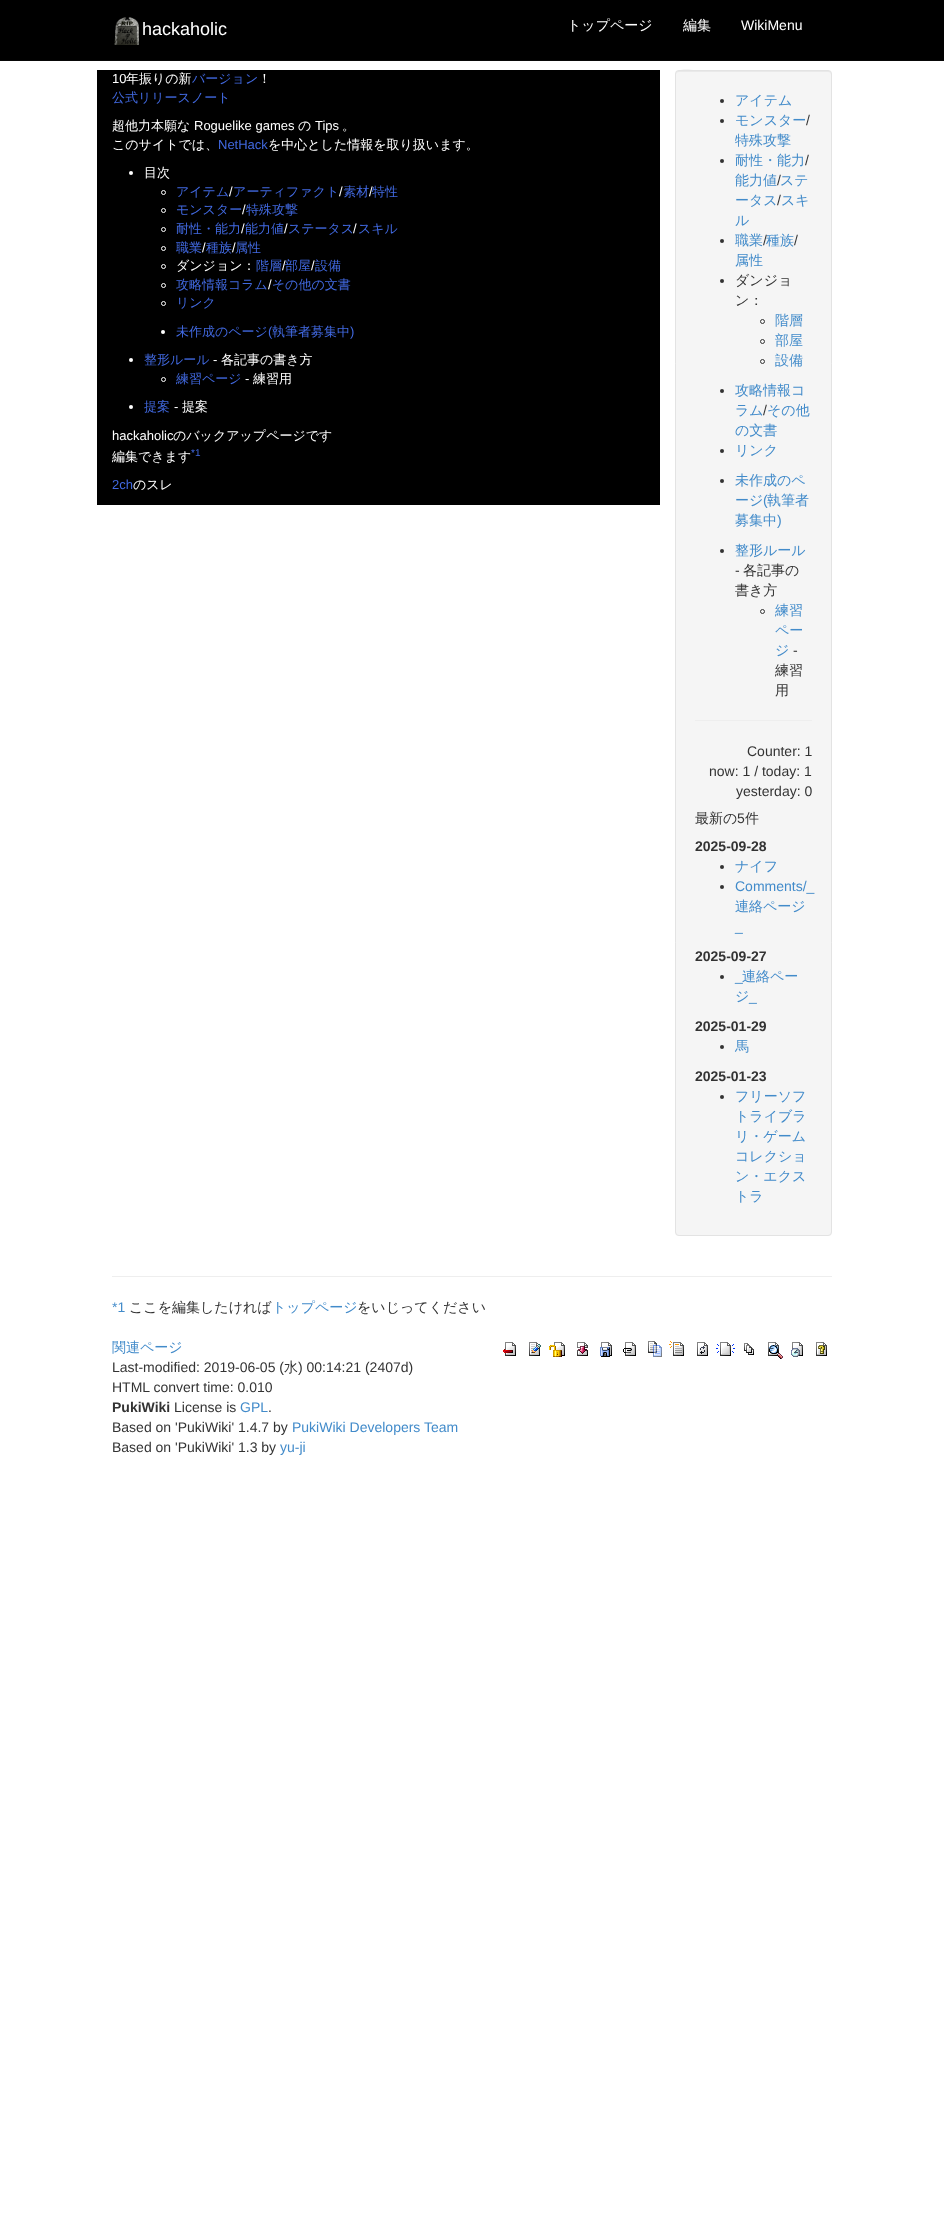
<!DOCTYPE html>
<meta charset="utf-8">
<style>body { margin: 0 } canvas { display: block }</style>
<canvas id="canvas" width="944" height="2232"></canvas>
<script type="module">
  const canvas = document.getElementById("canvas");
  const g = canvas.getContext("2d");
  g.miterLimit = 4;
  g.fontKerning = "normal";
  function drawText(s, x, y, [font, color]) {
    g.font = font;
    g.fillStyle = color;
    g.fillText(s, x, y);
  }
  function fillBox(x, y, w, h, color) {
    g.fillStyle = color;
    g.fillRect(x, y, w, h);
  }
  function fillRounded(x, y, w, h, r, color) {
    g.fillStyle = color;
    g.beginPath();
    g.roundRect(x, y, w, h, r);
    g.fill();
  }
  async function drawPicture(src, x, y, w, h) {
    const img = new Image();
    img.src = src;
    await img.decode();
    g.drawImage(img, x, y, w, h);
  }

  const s1 = ["18px Liberation Sans", "#FFFFFF"];
  const s2 = ["500 14px WenQuanYi Zen Hei", "#FFFFFF"];
  const s3 = ["14px Liberation Sans", "#FFFFFF"];
  const s4 = ["13px Liberation Sans", "#FFFFFF"];
  const s5 = ["500 13px WenQuanYi Zen Hei", "#FFFFFF"];
  const s6 = ["500 13px WenQuanYi Zen Hei", "#4169E1"];
  const s7 = ["13px Liberation Sans", "#4169E1"];
  const s8 = ["10px Liberation Sans", "#4169E1"];
  const s9 = ["500 14px WenQuanYi Zen Hei", "#428BCA"];
  const s10 = ["14px Liberation Sans", "#333333"];
  const s11 = ["500 14px WenQuanYi Zen Hei", "#333333"];
  const s12 = ["14px Liberation Sans", "#428BCA"];
  const s13 = ["bold 14px Liberation Sans", "#333333"];

  fillBox(0, 0, 944, 2232, "#FFFFFF");
  fillBox(0, 0, 944, 60, "#000000");
  fillBox(0, 60, 944, 1, "#080808");
  await drawPicture("pic1.png", 114, 17, 25, 28);
  drawText("hackaholic", 142, 35, s1);
  drawText("トップページ", 567, 30, s2);
  drawText("編集", 683, 30, s2);
  drawText("WikiMenu", 741, 30, s3);
  fillBox(97, 70, 563, 435, "#000000");
  drawText("10", 112, 83, s4);
  drawText("年振りの新", 126, 83, s5);
  drawText("バージョン", 192, 83, s6);
  drawText("！", 258, 83, s5);
  drawText("公式リリースノート", 112, 102, s6);
  drawText("超他力本願な", 112, 130, s5);
  drawText("Roguelike games", 194, 130, s4);
  drawText("の", 298, 130, s5);
  drawText("Tips", 315, 130, s4);
  drawText("。", 342, 130, s5);
  drawText("このサイトでは、", 112, 149, s5);
  drawText("NetHack", 218, 149, s7);
  drawText("を中心とした情報を取り扱います。", 268, 149, s5);
  g.beginPath();
  g.arc(131, 173, 2, 0, Math.PI * 2);
  g.fill();
  drawText("目次", 144, 177, s5);
  drawText("アイテム アーティファクト 素材", 176, 196, s6);
  drawText("/", 369, 196, s4);
  drawText("特性", 372, 196, s6);
  g.beginPath();
  g.arc(163.5, 192.5, 2, 0, Math.PI * 2);
  g.strokeStyle = "#FFFFFF";
  g.stroke();
  drawText("/", 229, 196, s4);
  drawText("/", 339, 196, s4);
  g.beginPath();
  g.arc(163.5, 210.5, 2, 0, Math.PI * 2);
  g.stroke();
  drawText("モンスター", 176, 214, s6);
  drawText("/", 242, 214, s4);
  drawText("特殊攻撃", 246, 214, s6);
  drawText("耐性・能力", 176, 233, s6);
  drawText("/", 241, 233, s4);
  drawText("能力値 ステータス スキル", 245, 233, s6);
  g.beginPath();
  g.arc(163.5, 229.5, 2, 0, Math.PI * 2);
  g.stroke();
  drawText("/", 284, 233, s4);
  drawText("/", 353, 233, s4);
  g.beginPath();
  g.arc(163.5, 248.5, 2, 0, Math.PI * 2);
  g.stroke();
  drawText("職業", 176, 252, s6);
  drawText("/", 202, 252, s4);
  drawText("種族", 206, 252, s6);
  drawText("/", 232, 252, s4);
  drawText("属性", 235, 252, s6);
  g.beginPath();
  g.arc(163.5, 266.5, 2, 0, Math.PI * 2);
  g.stroke();
  drawText("ダンジョン：", 176, 270, s5);
  drawText("階層", 256, 270, s6);
  drawText("/", 282, 270, s4);
  drawText("部屋", 285, 270, s6);
  drawText("/", 311, 270, s4);
  drawText("設備", 315, 270, s6);
  drawText("攻略情報コラム その他の文書", 176, 289, s6);
  g.beginPath();
  g.arc(163.5, 285.5, 2, 0, Math.PI * 2);
  g.stroke();
  drawText("/", 268, 289, s4);
  g.beginPath();
  g.arc(163.5, 303.5, 2, 0, Math.PI * 2);
  g.stroke();
  drawText("リンク", 176, 307, s6);
  g.fillStyle = "#FFFFFF";
  g.beginPath();
  g.arc(163, 332, 2, 0, Math.PI * 2);
  g.fill();
  drawText("未作成のページ", 176, 336, s6);
  drawText("(", 268, 336, s7);
  drawText("執筆者募集中", 272, 336, s6);
  drawText(")", 350, 336, s7);
  g.fillStyle = "#FFFFFF";
  g.beginPath();
  g.arc(131, 360, 2, 0, Math.PI * 2);
  g.fill();
  drawText("整形ルール", 144, 364, s6);
  drawText("-", 213, 364, s4);
  drawText("各記事の書き方", 221, 364, s5);
  g.beginPath();
  g.arc(163.5, 379.5, 2, 0, Math.PI * 2);
  g.stroke();
  drawText("練習ページ", 176, 383, s6);
  drawText("-", 245, 383, s4);
  drawText("練習用", 253, 383, s5);
  g.beginPath();
  g.arc(131, 407, 2, 0, Math.PI * 2);
  g.fill();
  drawText("提案", 144, 411, s6);
  drawText("-", 174, 411, s4);
  drawText("提案", 182, 411, s5);
  drawText("hackaholic", 112, 440, s4);
  drawText("のバックアップページです", 173, 440, s5);
  drawText("編集できます", 112, 461, s5);
  drawText("*1", 191, 456, s8);
  drawText("2ch", 112, 489, s7);
  drawText("のスレ", 133, 489, s5);
  fillRounded(675, 70, 157, 1166, 4, "#F5F5F5");
  g.fillStyle = "#E9E9E9";
  g.beginPath();
  g.moveTo(679, 72);
  g.lineTo(828, 72);
  g.bezierCurveTo(830, 72, 831, 73, 831, 75);
  g.bezierCurveTo(831, 73, 831, 72, 829, 71);
  g.lineTo(704, 71);
  g.bezierCurveTo(696, 71, 676, 66, 676, 75);
  g.bezierCurveTo(676, 73, 677, 72, 679, 72);
  g.closePath();
  g.fill();
  g.beginPath();
  g.roundRect(675.5, 70.5, 156, 1165, 3.5);
  g.strokeStyle = "#E3E3E3";
  g.stroke();
  g.fillStyle = "#333333";
  g.beginPath();
  g.arc(722, 101, 2, 0, Math.PI * 2);
  g.fill();
  drawText("アイテム", 735, 105, s9);
  g.fillStyle = "#333333";
  g.beginPath();
  g.arc(722, 121, 2, 0, Math.PI * 2);
  g.fill();
  drawText("モンスター", 735, 125, s9);
  drawText("/", 806, 125, s10);
  drawText("特殊攻撃", 735, 145, s9);
  g.fillStyle = "#333333";
  g.beginPath();
  g.arc(722, 161, 2, 0, Math.PI * 2);
  g.fill();
  drawText("耐性・能力", 735, 165, s9);
  drawText("/", 805, 165, s10);
  drawText("能力値", 735, 185, s9);
  drawText("/", 777, 185, s10);
  drawText("ステ", 780, 185, s9);
  drawText("ータス", 735, 205, s9);
  drawText("/", 777, 205, s10);
  drawText("スキ", 781, 205, s9);
  drawText("ル", 735, 225, s9);
  g.fillStyle = "#333333";
  g.beginPath();
  g.arc(722, 241, 2, 0, Math.PI * 2);
  g.fill();
  drawText("職業", 735, 245, s9);
  drawText("/", 763, 245, s10);
  drawText("種族", 766, 245, s9);
  drawText("/", 794, 245, s10);
  drawText("属性", 735, 265, s9);
  g.fillStyle = "#333333";
  g.beginPath();
  g.arc(722, 281, 2, 0, Math.PI * 2);
  g.fill();
  drawText("ダンジョ", 735, 285, s11);
  drawText("ン：", 735, 305, s11);
  g.beginPath();
  g.arc(762.5, 321.5, 2, 0, Math.PI * 2);
  g.strokeStyle = "#333333";
  g.stroke();
  drawText("階層", 775, 325, s9);
  g.beginPath();
  g.arc(762.5, 341.5, 2, 0, Math.PI * 2);
  g.stroke();
  drawText("部屋", 775, 345, s9);
  g.beginPath();
  g.arc(762.5, 361.5, 2, 0, Math.PI * 2);
  g.stroke();
  drawText("設備", 775, 365, s9);
  g.fillStyle = "#333333";
  g.beginPath();
  g.arc(722, 391, 2, 0, Math.PI * 2);
  g.fill();
  drawText("攻略情報コ", 735, 395, s9);
  drawText("ラム", 735, 415, s9);
  drawText("/", 763, 415, s10);
  drawText("その他", 767, 415, s9);
  drawText("の文書", 735, 435, s9);
  g.fillStyle = "#333333";
  g.beginPath();
  g.arc(722, 451, 2, 0, Math.PI * 2);
  g.fill();
  drawText("リンク", 735, 455, s9);
  g.fillStyle = "#333333";
  g.beginPath();
  g.arc(722, 481, 2, 0, Math.PI * 2);
  g.fill();
  drawText("未作成のペ", 735, 485, s9);
  drawText("ージ", 735, 505, s9);
  drawText("(", 763, 505, s12);
  drawText("執筆者", 767, 505, s9);
  drawText("募集中", 735, 525, s9);
  drawText(")", 777, 525, s12);
  g.fillStyle = "#333333";
  g.beginPath();
  g.arc(722, 551, 2, 0, Math.PI * 2);
  g.fill();
  drawText("整形ルール", 735, 555, s9);
  drawText("-", 735, 575, s10);
  drawText("各記事の", 743, 575, s11);
  drawText("書き方", 735, 595, s11);
  g.beginPath();
  g.arc(762.5, 611.5, 2, 0, Math.PI * 2);
  g.stroke();
  drawText("練習", 775, 615, s9);
  drawText("ペー", 775, 635, s9);
  drawText("ジ", 775, 655, s9);
  drawText("-", 793, 655, s10);
  drawText("練習", 775, 675, s11);
  drawText("用", 775, 695, s11);
  fillBox(695, 720, 117, 1, "#EEEEEE");
  drawText("Counter: 1", 747, 756, s10);
  drawText("now: 1 / today: 1", 709, 776, s10);
  drawText("yesterday: 0", 736, 796, s10);
  drawText("最新の", 695, 823, s11);
  drawText("5", 737, 823, s10);
  drawText("件", 745, 823, s11);
  drawText("2025-09-28", 695, 851, s13);
  g.beginPath();
  g.arc(722, 867, 2, 0, Math.PI * 2);
  g.fill();
  drawText("ナイフ", 735, 871, s9);
  g.fillStyle = "#333333";
  g.beginPath();
  g.arc(722, 887, 2, 0, Math.PI * 2);
  g.fill();
  drawText("Comments/_", 735, 891, s12);
  drawText("連絡ページ", 735, 911, s9);
  drawText("_", 735, 931, s12);
  drawText("2025-09-27", 695, 961, s13);
  g.beginPath();
  g.arc(722, 977, 2, 0, Math.PI * 2);
  g.fill();
  drawText("_", 735, 981, s12);
  drawText("連絡ペー", 742, 981, s9);
  drawText("ジ", 735, 1001, s9);
  drawText("_", 749, 1001, s12);
  drawText("2025-01-29", 695, 1031, s13);
  g.beginPath();
  g.arc(722, 1047, 2, 0, Math.PI * 2);
  g.fill();
  drawText("馬", 735, 1051, s9);
  drawText("2025-01-23", 695, 1081, s13);
  g.beginPath();
  g.arc(722, 1097, 2, 0, Math.PI * 2);
  g.fill();
  drawText("フリーソフ", 735, 1101, s9);
  drawText("トライブラ", 735, 1121, s9);
  drawText("リ・ゲーム", 735, 1141, s9);
  drawText("コレクショ", 735, 1161, s9);
  drawText("ン・エクス", 735, 1181, s9);
  drawText("トラ", 735, 1201, s9);
  fillBox(112, 1276, 720, 1, "#EEEEEE");
  drawText("*1", 112, 1312, s12);
  drawText("ここを編集したければ", 129, 1312, s11);
  drawText("トップページ", 272, 1312, s9);
  drawText("をいじってください", 357, 1312, s11);
  drawText("関連ページ", 112, 1352, s9);
  await drawPicture("pic2.png", 503, 1342, 13, 14);
  await drawPicture("pic3.png", 529, 1342, 12, 14);
  await drawPicture("pic4.png", 549, 1342, 16, 15);
  await drawPicture("pic5.png", 577, 1342, 11, 14);
  await drawPicture("pic6.png", 600, 1342, 12, 15);
  await drawPicture("pic7.png", 623, 1342, 13, 14);
  await drawPicture("pic8.png", 648, 1341, 14, 16);
  await drawPicture("pic9.png", 669, 1341, 15, 15);
  await drawPicture("pic10.png", 697, 1342, 11, 14);
  await drawPicture("pic11.png", 716, 1342, 19, 14);
  await drawPicture("pic12.png", 744, 1343, 10, 12);
  await drawPicture("pic13.png", 768, 1342, 15, 17);
  await drawPicture("pic14.png", 791, 1342, 12, 15);
  await drawPicture("pic15.png", 816, 1342, 11, 14);
  drawText("Last-modified: 2019-06-05 (", 112, 1372, s10);
  drawText("水", 284, 1372, s11);
  drawText(") 00:14:21 (2407d)", 298, 1372, s10);
  drawText("HTML convert time: 0.010", 112, 1392, s10);
  drawText("PukiWiki", 112, 1412, s13);
  drawText("License is", 174, 1412, s10);
  drawText("GPL", 240, 1412, s12);
  drawText(".", 268, 1412, s10);
  drawText("Based on 'PukiWiki' 1.4.7 by", 112, 1432, s10);
  drawText("PukiWiki Developers Team", 292, 1432, s12);
  drawText("Based on 'PukiWiki' 1.3 by", 112, 1452, s10);
  drawText("yu-ji", 280, 1452, s12);
</script>
